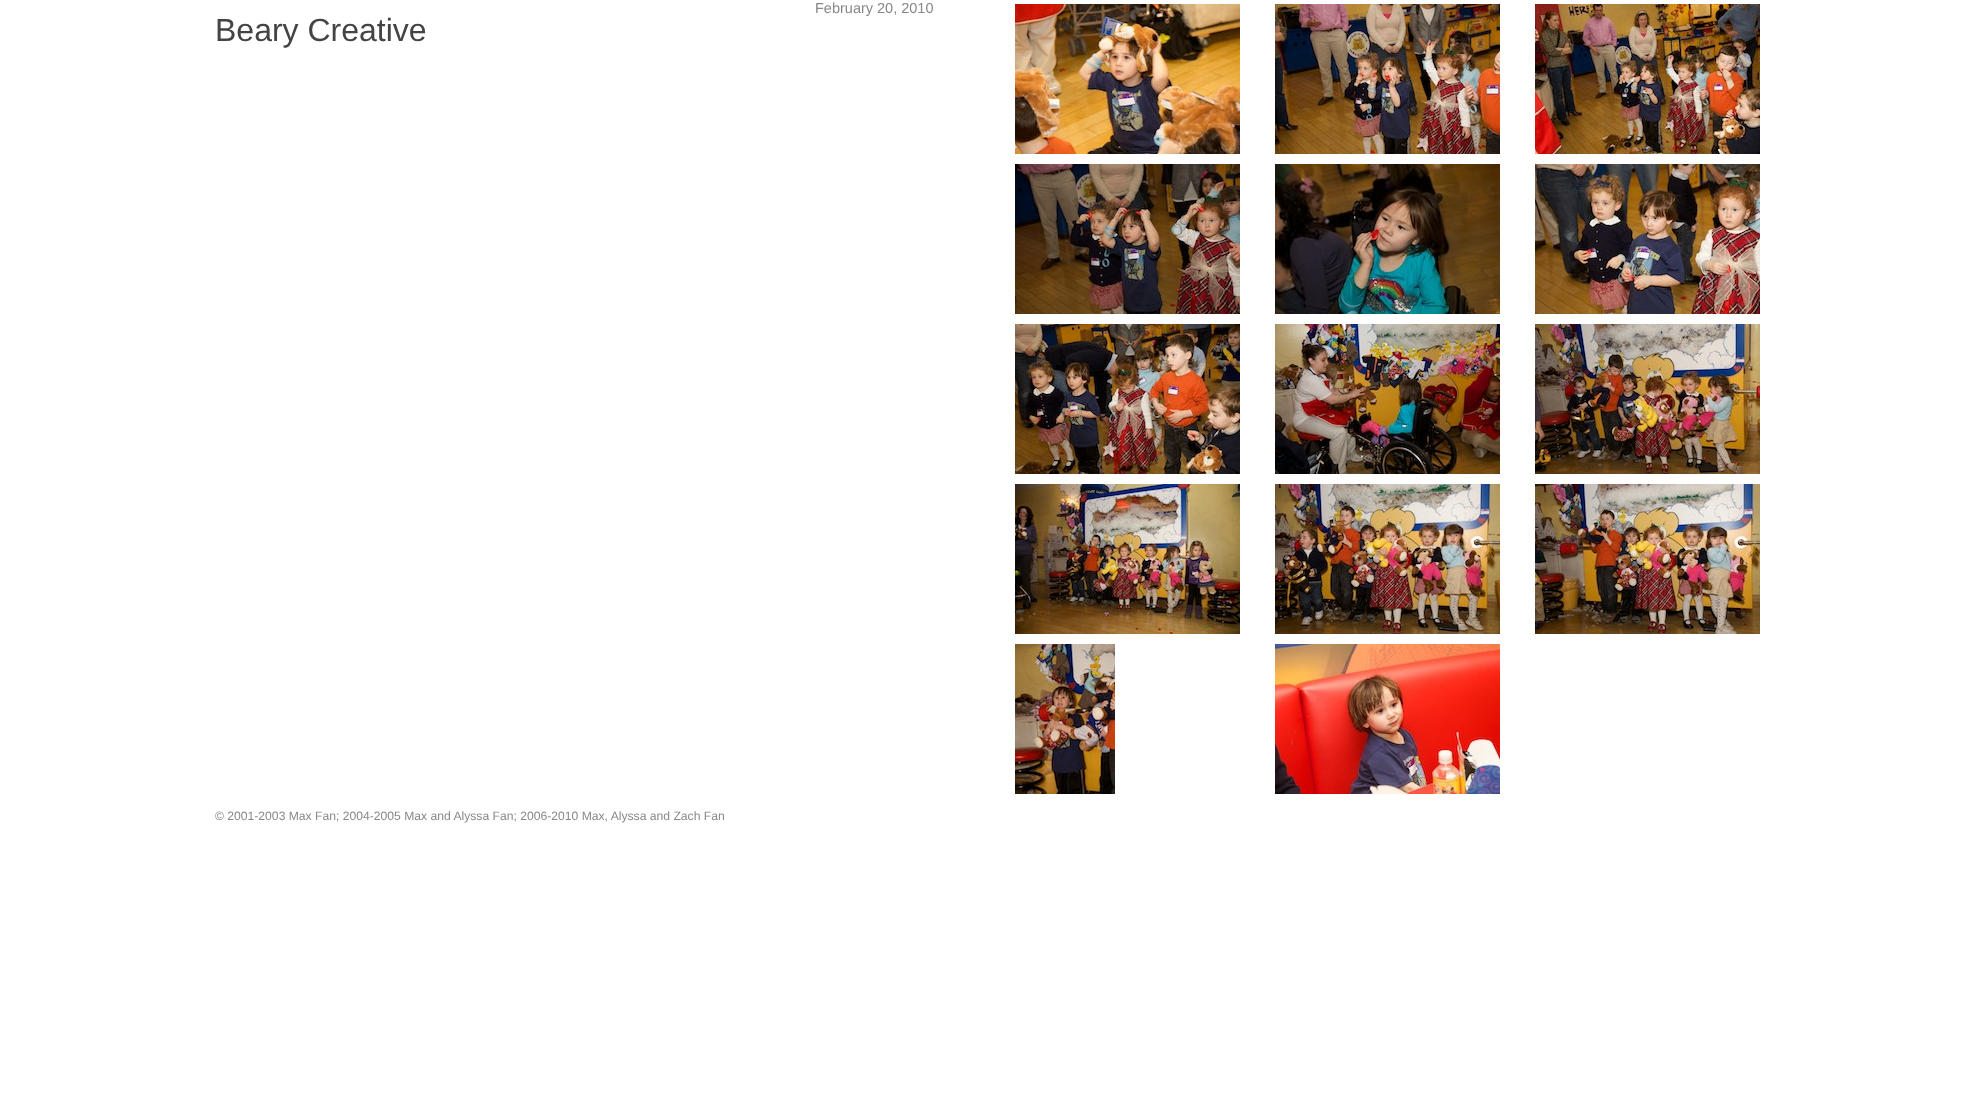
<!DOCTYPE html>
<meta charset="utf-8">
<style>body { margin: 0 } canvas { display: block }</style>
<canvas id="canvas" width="1964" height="1099"></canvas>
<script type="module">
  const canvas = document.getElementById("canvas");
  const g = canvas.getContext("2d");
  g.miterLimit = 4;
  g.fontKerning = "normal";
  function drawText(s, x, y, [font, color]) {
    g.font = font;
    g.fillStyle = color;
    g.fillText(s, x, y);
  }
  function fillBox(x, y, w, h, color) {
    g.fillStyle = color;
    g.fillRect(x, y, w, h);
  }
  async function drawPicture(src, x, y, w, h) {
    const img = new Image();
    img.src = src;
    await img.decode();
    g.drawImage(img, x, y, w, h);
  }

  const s1 = ["14.5px Liberation Sans", "#888888"];
  const s2 = ["32px Liberation Sans", "#444444"];
  const s3 = ["12.15px Liberation Sans", "#888888"];

  fillBox(0, 0, 1964, 1099, "#FFFFFF");
  drawText("February 20, 2010", 815, 13, s1);
  await drawPicture("pic1.png", 1015, 4, 225, 150);
  await drawPicture("pic2.png", 1275, 4, 225, 150);
  await drawPicture("pic3.png", 1535, 4, 225, 150);
  await drawPicture("pic4.png", 1015, 164, 225, 150);
  await drawPicture("pic5.png", 1275, 164, 225, 150);
  await drawPicture("pic6.png", 1535, 164, 225, 150);
  await drawPicture("pic7.png", 1015, 324, 225, 150);
  await drawPicture("pic8.png", 1275, 324, 225, 150);
  await drawPicture("pic9.png", 1535, 324, 225, 150);
  await drawPicture("pic10.png", 1015, 484, 225, 150);
  await drawPicture("pic11.png", 1275, 484, 225, 150);
  await drawPicture("pic12.png", 1535, 484, 225, 150);
  await drawPicture("pic13.png", 1015, 644, 100, 150);
  await drawPicture("pic14.png", 1275, 644, 225, 150);
  drawText("Beary Creative", 215, 41, s2);
  drawText("© 2001-2003 Max Fan; 2004-2005 Max and Alyssa Fan; 2006-2010 Max, Alyssa and Zach Fan", 215, 820, s3);
</script>
